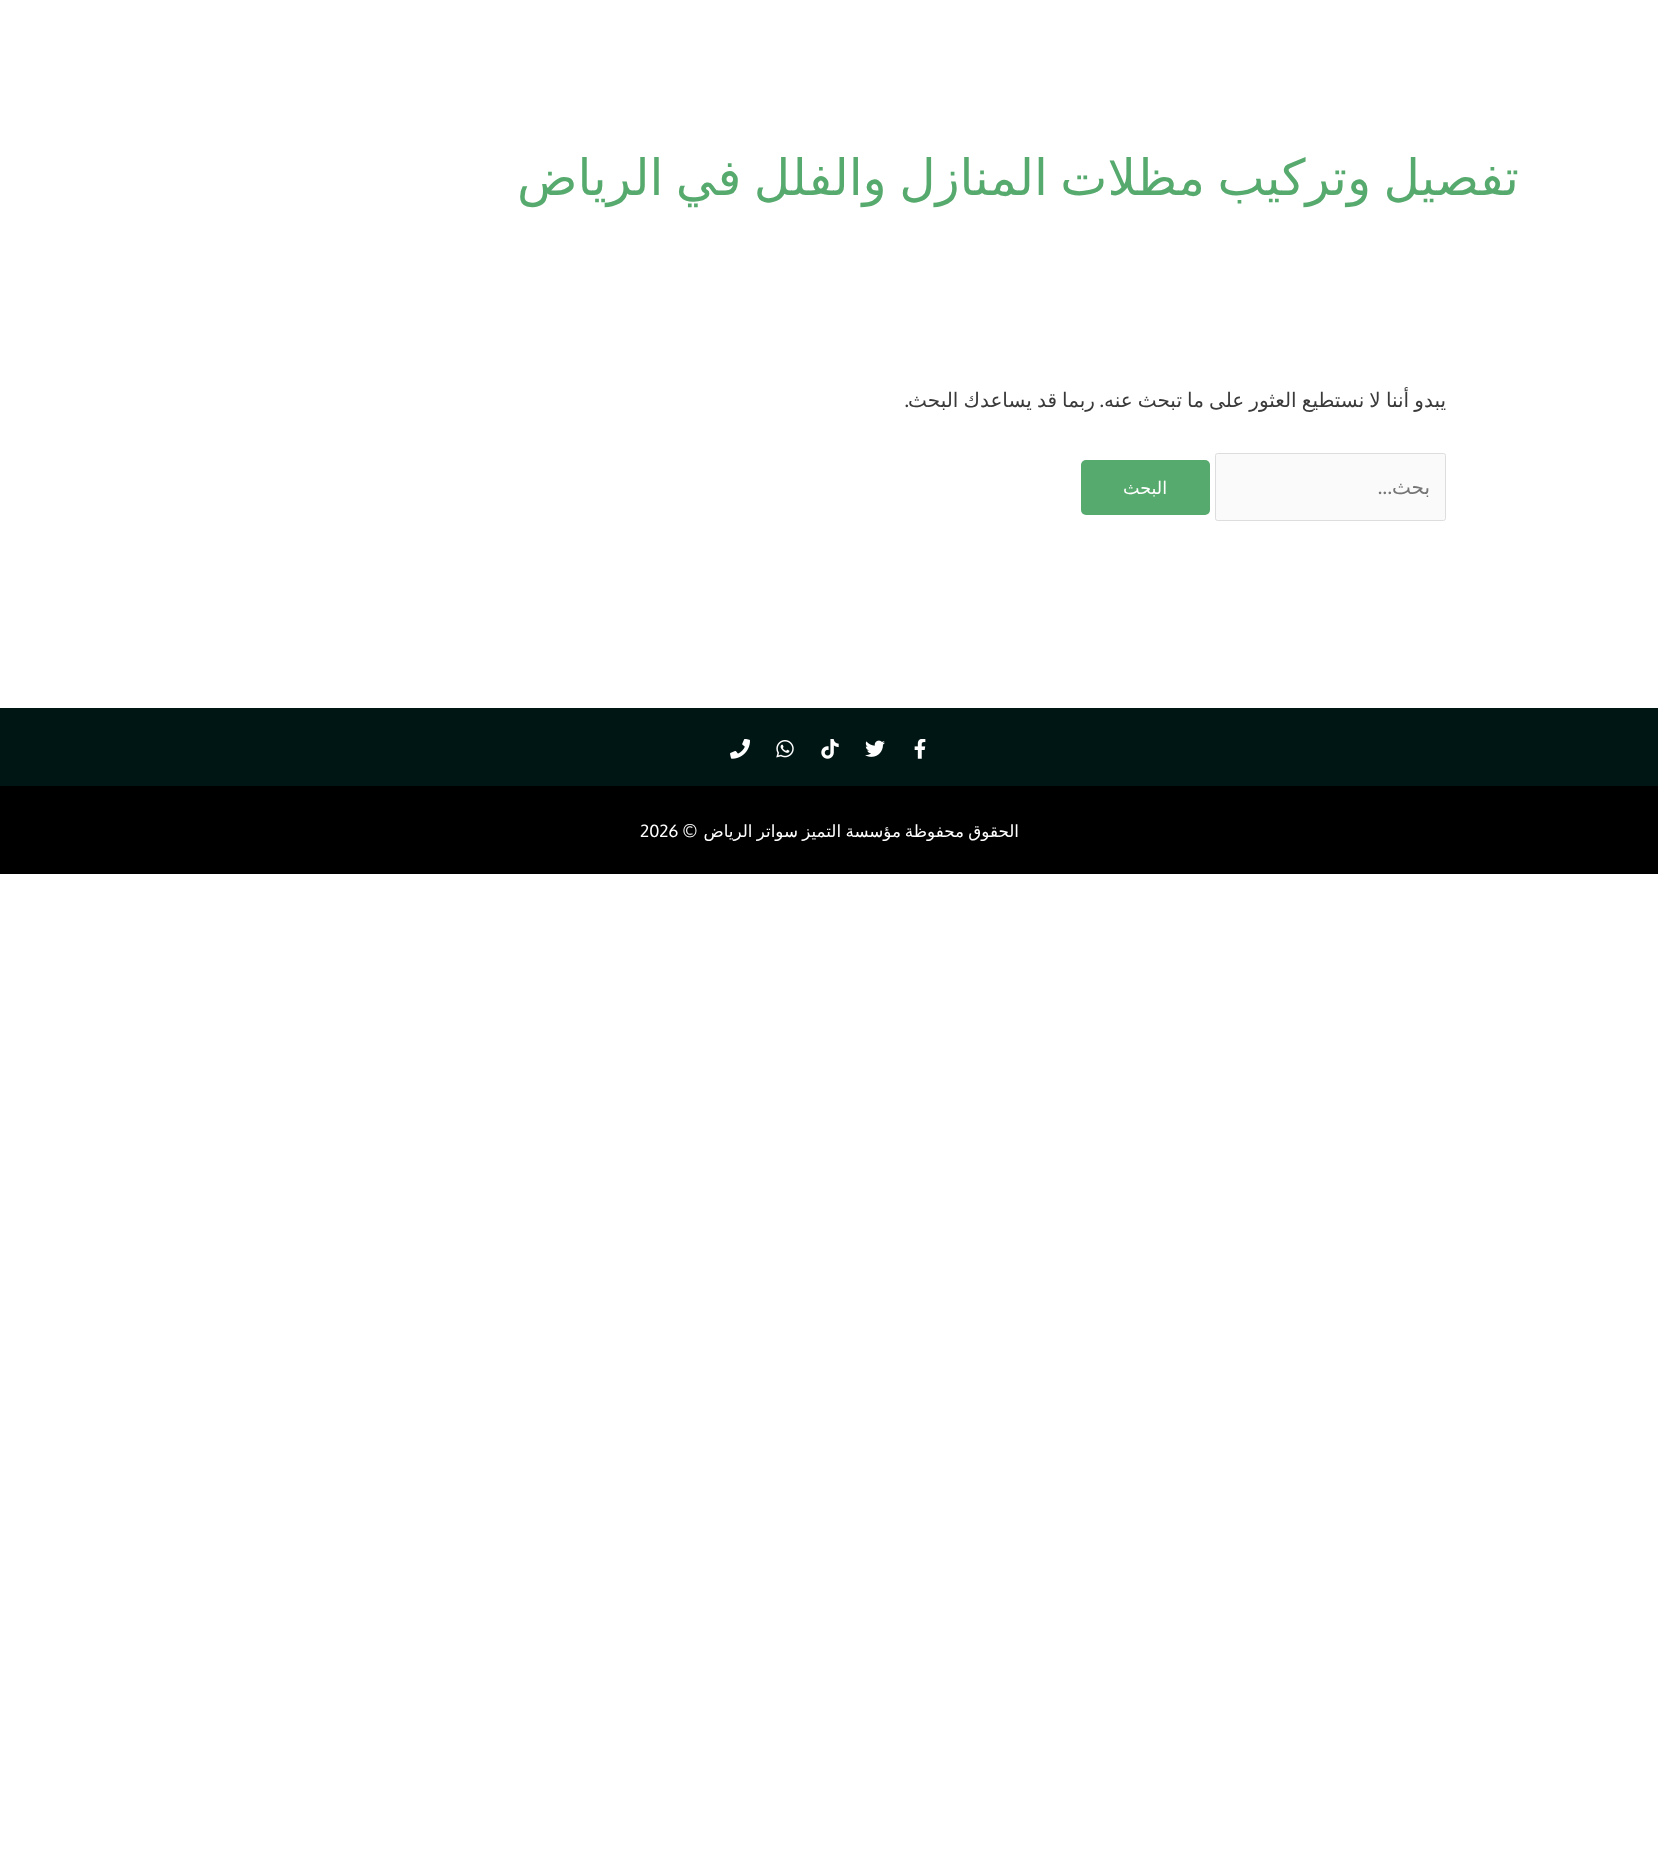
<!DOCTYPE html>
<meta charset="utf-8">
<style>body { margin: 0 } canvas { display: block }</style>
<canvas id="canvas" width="1658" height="1853"></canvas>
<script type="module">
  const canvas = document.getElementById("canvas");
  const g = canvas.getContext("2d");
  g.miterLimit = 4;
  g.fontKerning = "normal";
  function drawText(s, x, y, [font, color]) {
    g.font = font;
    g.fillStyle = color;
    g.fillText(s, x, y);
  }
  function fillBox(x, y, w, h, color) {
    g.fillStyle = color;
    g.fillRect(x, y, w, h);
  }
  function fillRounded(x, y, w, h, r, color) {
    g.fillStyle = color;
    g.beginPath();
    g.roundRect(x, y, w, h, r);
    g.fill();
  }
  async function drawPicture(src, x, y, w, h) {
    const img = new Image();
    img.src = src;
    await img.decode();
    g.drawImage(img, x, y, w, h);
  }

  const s1 = ["50px DejaVu Sans", "#57AA6E"];
  const s2 = ["20px DejaVu Sans", "#3A3A3A"];
  const s3 = ["20px Oxygen", "#3A3A3A"];
  const s4 = ["20px DejaVu Sans", "#757575"];
  const s5 = ["20px Oxygen", "#757575"];
  const s6 = ["17.5px DejaVu Sans", "#FFFFFF"];
  const s7 = ["16.75px DejaVu Sans", "#FFFFFF"];
  const s8 = ["16.75px Oxygen", "#FFFFFF"];

  fillBox(0, 0, 1658, 1853, "#FFFFFF");
  g.wordSpacing = "-3.5px";
  g.direction = "rtl";
  drawText("تفصيل وتركيب مظلات المنازل والفلل في الرياض", 1519, 195, s1);
  g.wordSpacing = "-1.25px";
  drawText("يبدو أننا لا نستطيع العثور على ما تبحث عنه", 1446, 407, s2);
  g.wordSpacing = "0px";
  drawText(".", 1104, 407, s3);
  g.wordSpacing = "-1.25px";
  drawText("ربما قد يساعدك البحث", 1095, 407, s2);
  g.wordSpacing = "0px";
  drawText(".", 909, 407, s3);
  g.fillStyle = "#FAFAFA";
  g.beginPath();
  g.roundRect(1215.5, 453.5, 230, 67, 2);
  g.fill();
  g.strokeStyle = "#DDDDDD";
  g.stroke();
  drawText("بحث", 1430, 494, s4);
  drawText("...", 1392, 494, s5);
  fillRounded(1081, 460, 129, 55, 5, "#57AA6E");
  drawText("البحث", 1167, 494, s6);
  fillBox(0, 786, 1658, 88, "#000000");
  fillBox(0, 708, 1658, 78, "#001615");
  await drawPicture("pic1.png", 914, 739, 12, 20);
  await drawPicture("pic2.png", 865, 740, 20, 17);
  await drawPicture("pic3.png", 821, 739, 18, 20);
  await drawPicture("pic4.png", 776, 740, 18, 18);
  await drawPicture("pic5.png", 730, 739, 20, 20);
  g.wordSpacing = "-1px";
  drawText("الحقوق محفوظة", 1019, 837, s7);
  drawText("مؤسسة التميز سواتر الرياض", 901, 837, s7);
  g.wordSpacing = "0px";
  g.direction = "ltr";
  drawText("2026 ©", 640, 837, s8);
</script>
